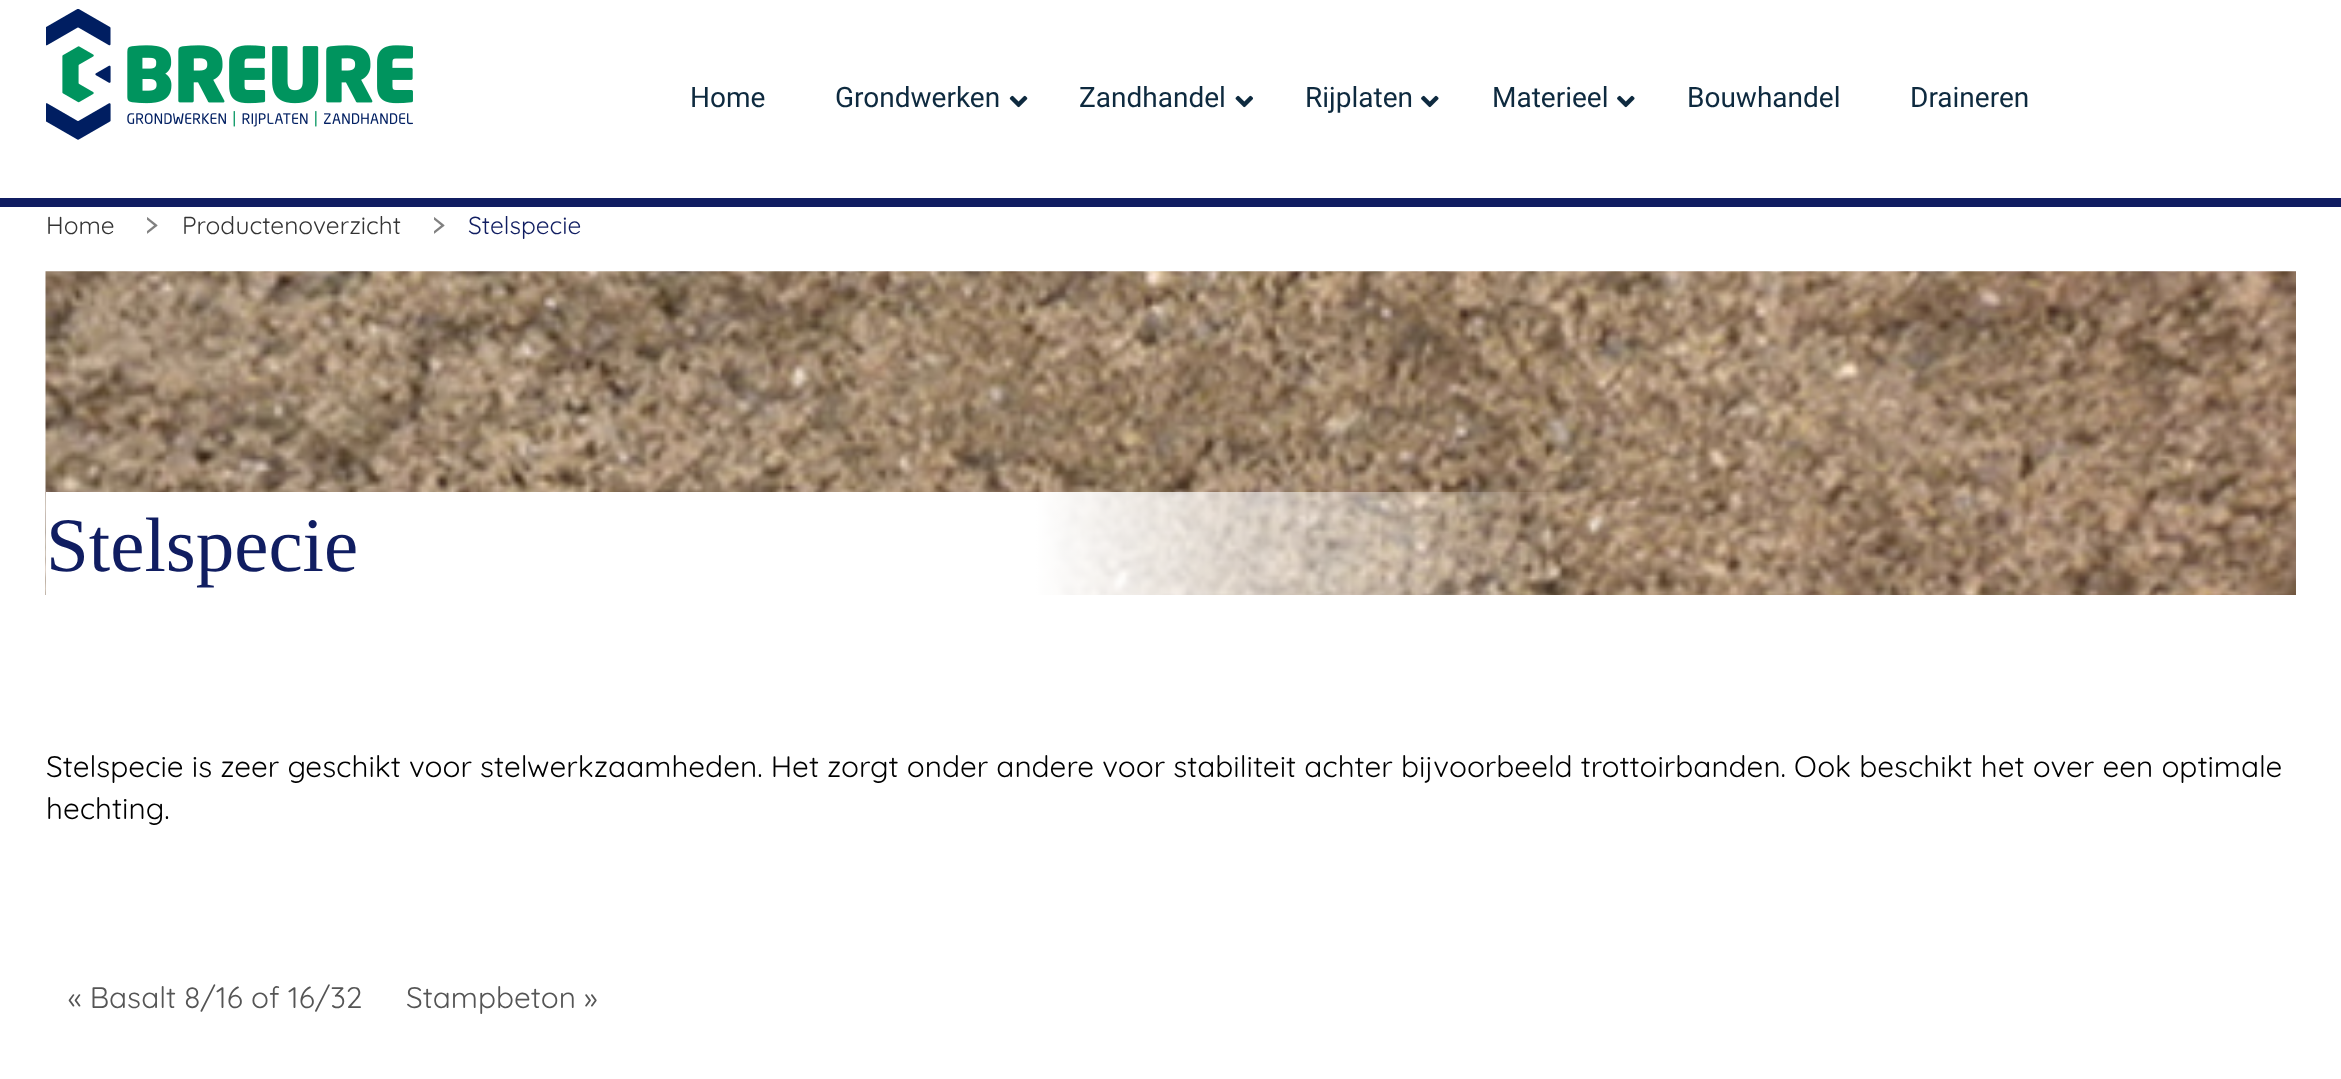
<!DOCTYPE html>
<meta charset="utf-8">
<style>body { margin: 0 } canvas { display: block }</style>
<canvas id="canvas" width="2341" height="1079"></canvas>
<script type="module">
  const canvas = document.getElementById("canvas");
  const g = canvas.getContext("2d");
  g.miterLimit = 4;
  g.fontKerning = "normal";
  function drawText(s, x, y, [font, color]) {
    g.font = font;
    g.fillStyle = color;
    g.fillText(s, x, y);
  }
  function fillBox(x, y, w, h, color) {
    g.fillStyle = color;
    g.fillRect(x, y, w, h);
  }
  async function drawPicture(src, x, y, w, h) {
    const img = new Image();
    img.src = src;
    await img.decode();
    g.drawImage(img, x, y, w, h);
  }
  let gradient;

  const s1 = ["28px Roboto", "#0E2A3F"];
  const s2 = ["24.5px Quicksand", "#333333"];
  const s3 = ["24.5px Quicksand", "#101D61"];
  const s4 = ["77px Liberation Serif", "#101D61"];
  const s5 = ["29.75px Quicksand", "#000000"];
  const s6 = ["29.75px Quicksand", "#555555"];

  fillBox(0, 0, 2341, 1079, "#FFFFFF");
  fillBox(0, 198, 2341, 9, "#101D61");
  await drawPicture("pic1.png", 46, 9, 367, 131);
  drawText("Home", 690, 107, s1);
  drawText("Grondwerken", 835, 107, s1);
  await drawPicture("pic2.png", 1009, 95, 19, 13);
  drawText("Zandhandel", 1079, 107, s1);
  await drawPicture("pic3.png", 1235, 95, 18, 13);
  drawText("Rijplaten", 1305, 107, s1);
  await drawPicture("pic4.png", 1421, 95, 18, 13);
  drawText("Materieel", 1492, 107, s1);
  await drawPicture("pic4.png", 1617, 95, 18, 13);
  drawText("Bouwhandel", 1687, 107, s1);
  drawText("Draineren", 1910, 107, s1);
  drawText("Home", 46, 234, s2);
  await drawPicture("pic5.png", 147, 217, 11, 17);
  drawText("Productenoverzicht", 182, 234, s2);
  await drawPicture("pic5.png", 434, 217, 11, 17);
  drawText("Stelspecie", 468, 234, s3);
  await drawPicture("pic6.png", 45, 271, 2251, 324);
  gradient = g.createLinearGradient(46, 547, 2296, 547);
  gradient.addColorStop(0.44, "#FFFFFF");
  gradient.addColorStop(0.68, "rgba(255, 255, 255, 0)");
  g.fillStyle = gradient;
  g.fillRect(46, 492, 1518, 103);
  drawText("Stelspecie", 46, 571, s4);
  drawText("Stelspecie is zeer geschikt voor stelwerkzaamheden. Het zorgt onder andere voor stabiliteit achter bijvoorbeeld trottoirbanden. Ook beschikt het over een optimale", 46, 777, s5);
  drawText("hechting.", 46, 819, s5);
  drawText("« Basalt 8/16 of 16/32", 68, 1008, s6);
  drawText("Stampbeton »", 406, 1008, s6);
</script>
